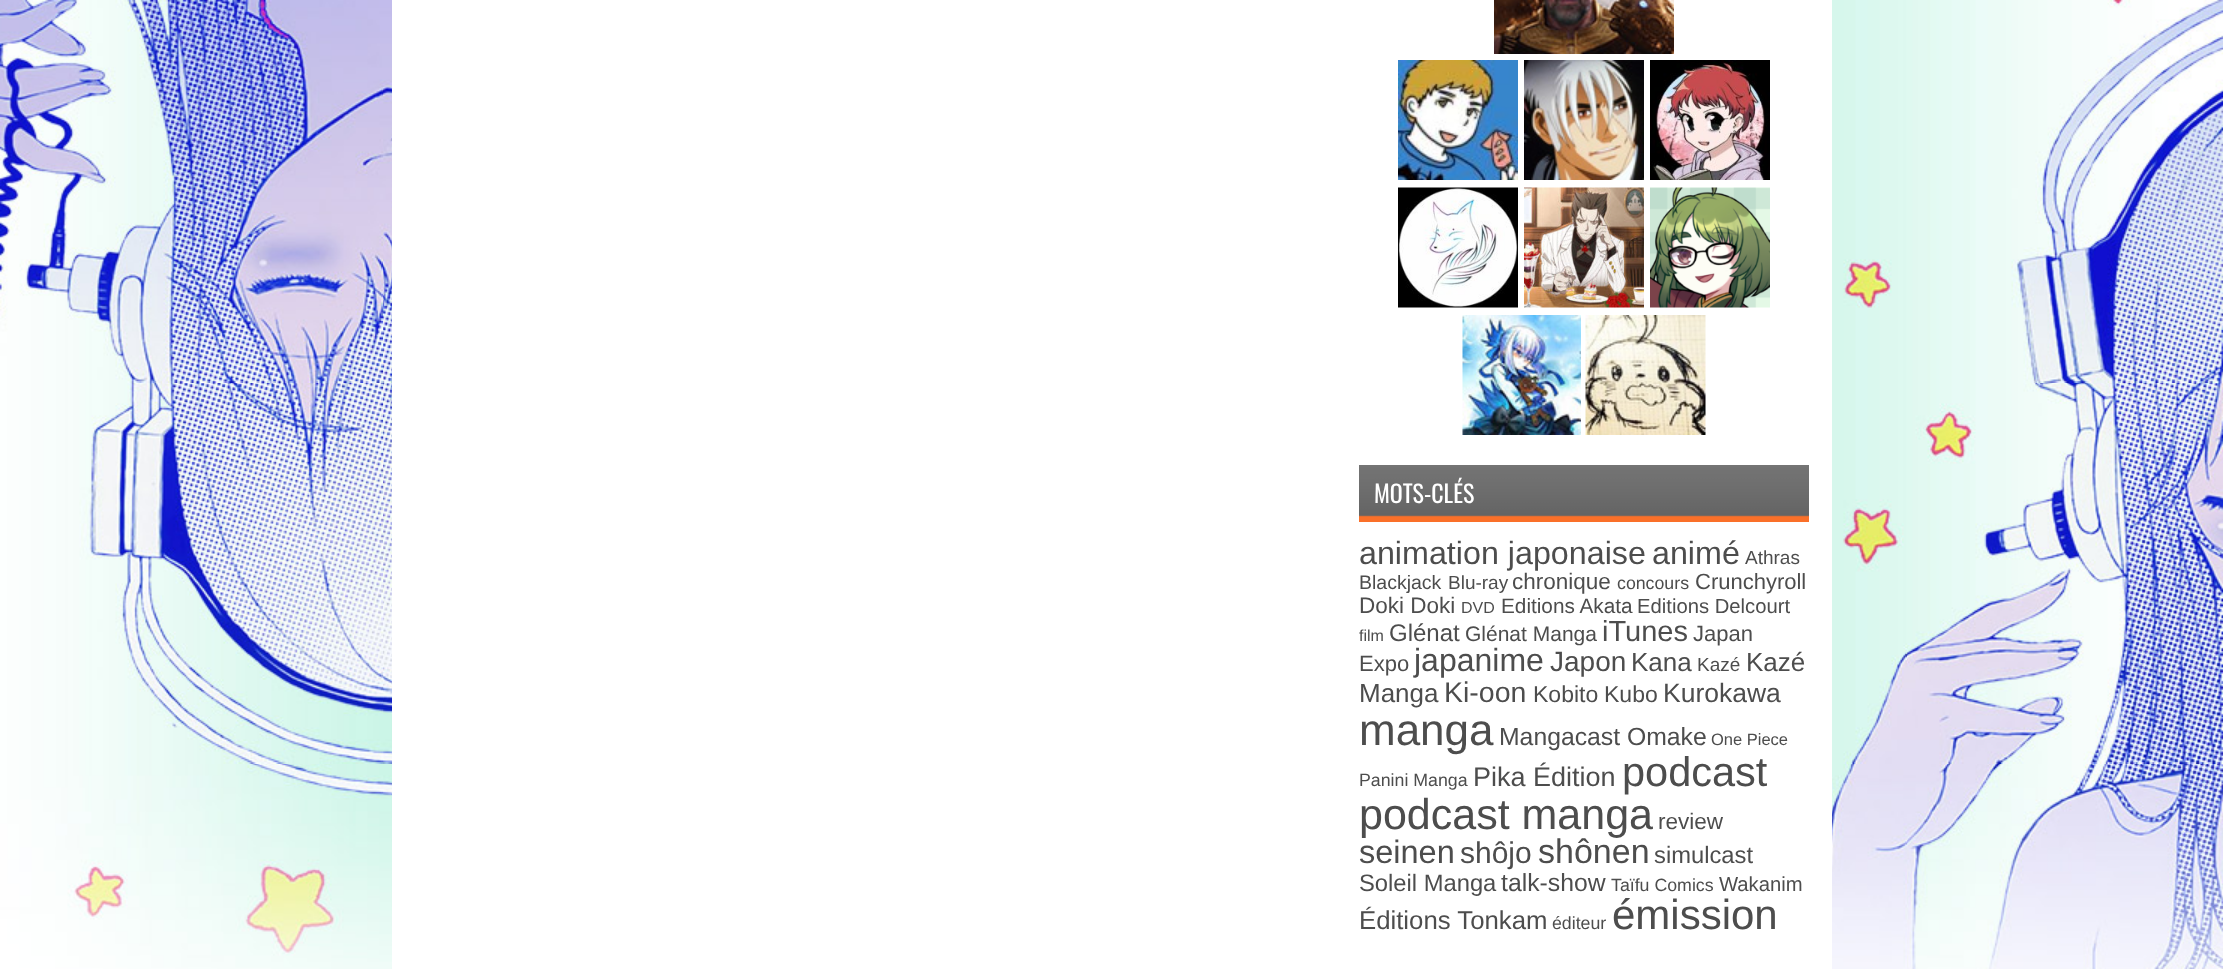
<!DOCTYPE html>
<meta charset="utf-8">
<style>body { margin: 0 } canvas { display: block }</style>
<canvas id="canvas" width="2223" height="969"></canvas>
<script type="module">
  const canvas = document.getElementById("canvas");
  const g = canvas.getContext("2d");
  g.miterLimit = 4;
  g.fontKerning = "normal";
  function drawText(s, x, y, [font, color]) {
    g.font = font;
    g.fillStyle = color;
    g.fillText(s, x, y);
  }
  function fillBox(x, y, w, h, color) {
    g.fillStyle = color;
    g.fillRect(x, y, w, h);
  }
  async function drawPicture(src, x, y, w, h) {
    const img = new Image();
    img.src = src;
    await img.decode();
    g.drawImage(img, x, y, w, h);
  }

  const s1 = ["24px Oswald", "#FFFFFF"];
  const s2 = ["32.25px Liberation Sans", "#4D4D4D"];
  const s3 = ["19px Liberation Sans", "#4D4D4D"];
  const s4 = ["19.5px Liberation Sans", "#4D4D4D"];
  const s5 = ["22.5px Liberation Sans", "#4D4D4D"];
  const s6 = ["17.75px Liberation Sans", "#4D4D4D"];
  const s7 = ["22px Liberation Sans", "#4D4D4D"];
  const s8 = ["16px Liberation Sans", "#4D4D4D"];
  const s9 = ["20.75px Liberation Sans", "#4D4D4D"];
  const s10 = ["20.25px Liberation Sans", "#4D4D4D"];
  const s11 = ["24px Liberation Sans", "#4D4D4D"];
  const s12 = ["21px Liberation Sans", "#4D4D4D"];
  const s13 = ["29px Liberation Sans", "#4D4D4D"];
  const s14 = ["32px Liberation Sans", "#4D4D4D"];
  const s15 = ["28px Liberation Sans", "#4D4D4D"];
  const s16 = ["26px Liberation Sans", "#4D4D4D"];
  const s17 = ["28.5px Liberation Sans", "#4D4D4D"];
  const s18 = ["23px Liberation Sans", "#4D4D4D"];
  const s19 = ["26.5px Liberation Sans", "#4D4D4D"];
  const s20 = ["44px Liberation Sans", "#4D4D4D"];
  const s21 = ["24.75px Liberation Sans", "#4D4D4D"];
  const s22 = ["16.5px Liberation Sans", "#4D4D4D"];
  const s23 = ["27px Liberation Sans", "#4D4D4D"];
  const s24 = ["41.5px Liberation Sans", "#4D4D4D"];
  const s25 = ["43px Liberation Sans", "#4D4D4D"];
  const s26 = ["32.5px Liberation Sans", "#4D4D4D"];
  const s27 = ["30px Liberation Sans", "#4D4D4D"];
  const s28 = ["34px Liberation Sans", "#4D4D4D"];
  const s29 = ["23.75px Liberation Sans", "#4D4D4D"];
  const s30 = ["25.75px Liberation Sans", "#4D4D4D"];
  const s31 = ["42px Liberation Sans", "#4D4D4D"];

  fillBox(0, 0, 2223, 969, "#FFFFFF");
  await drawPicture("pic1.png", 0, 0, 2223, 969);
  fillBox(392, 0, 1440, 969, "#FFFFFF");
  await drawPicture("pic2.png", 1494, 0, 180, 54);
  await drawPicture("pic3.png", 1398, 60, 120, 120);
  await drawPicture("pic4.png", 1524, 60, 120, 120);
  await drawPicture("pic5.png", 1650, 60, 120, 120);
  await drawPicture("pic6.png", 1398, 187, 120, 121);
  await drawPicture("pic7.png", 1524, 187, 120, 121);
  await drawPicture("pic8.png", 1650, 187, 120, 121);
  await drawPicture("pic9.png", 1462, 315, 119, 120);
  await drawPicture("pic10.png", 1585, 315, 121, 120);
  await drawPicture("pic11.png", 1359, 465, 450, 57);
  drawText("MOTS-CLÉS", 1374, 503, s1);
  drawText("animation japonaise", 1359, 564, s2);
  drawText("animé", 1652, 564, s2);
  drawText("Athras", 1745, 564, s3);
  drawText("Blackjack", 1359, 589, s4);
  drawText("Blu-ray", 1448, 589, s3);
  drawText("chronique", 1512, 589, s5);
  drawText("concours", 1617, 589, s6);
  drawText("Crunchyroll", 1695, 589, s7);
  drawText("Doki Doki", 1359, 613, s5);
  drawText("DVD", 1461, 613, s8);
  drawText("Editions Akata", 1501, 613, s9);
  drawText("Editions Delcourt", 1637, 613, s10);
  drawText("film", 1359, 641, s8);
  drawText("Glénat", 1389, 641, s11);
  drawText("Glénat Manga", 1465, 641, s12);
  drawText("iTunes", 1602, 641, s13);
  drawText("Japan", 1693, 641, s7);
  drawText("Expo", 1359, 671, s7);
  drawText("japanime", 1414, 671, s14);
  drawText("Japon", 1550, 671, s15);
  drawText("Kana", 1631, 671, s16);
  drawText("Kazé", 1697, 671, s3);
  drawText("Kazé", 1746, 671, s16);
  drawText("Manga", 1359, 702, s16);
  drawText("Ki-oon", 1444, 702, s17);
  drawText("Kobito", 1533, 702, s18);
  drawText("Kubo", 1604, 702, s18);
  drawText("Kurokawa", 1663, 702, s19);
  drawText("manga", 1359, 745, s20);
  drawText("Mangacast Omake", 1499, 745, s21);
  drawText("One Piece", 1711, 745, s22);
  drawText("Panini Manga", 1359, 786, s6);
  drawText("Pika Édition", 1473, 786, s23);
  drawText("podcast", 1622, 786, s24);
  drawText("podcast manga", 1359, 829, s25);
  drawText("review", 1658, 829, s5);
  drawText("seinen", 1359, 863, s26);
  drawText("shôjo", 1460, 863, s27);
  drawText("shônen", 1538, 863, s28);
  drawText("simulcast", 1654, 863, s29);
  drawText("Soleil Manga", 1359, 891, s29);
  drawText("talk-show", 1501, 891, s21);
  drawText("Taïfu Comics", 1611, 891, s6);
  drawText("Wakanim", 1719, 891, s10);
  drawText("Éditions Tonkam", 1359, 929, s30);
  drawText("éditeur", 1552, 929, s6);
  drawText("émission", 1612, 929, s31);
</script>
